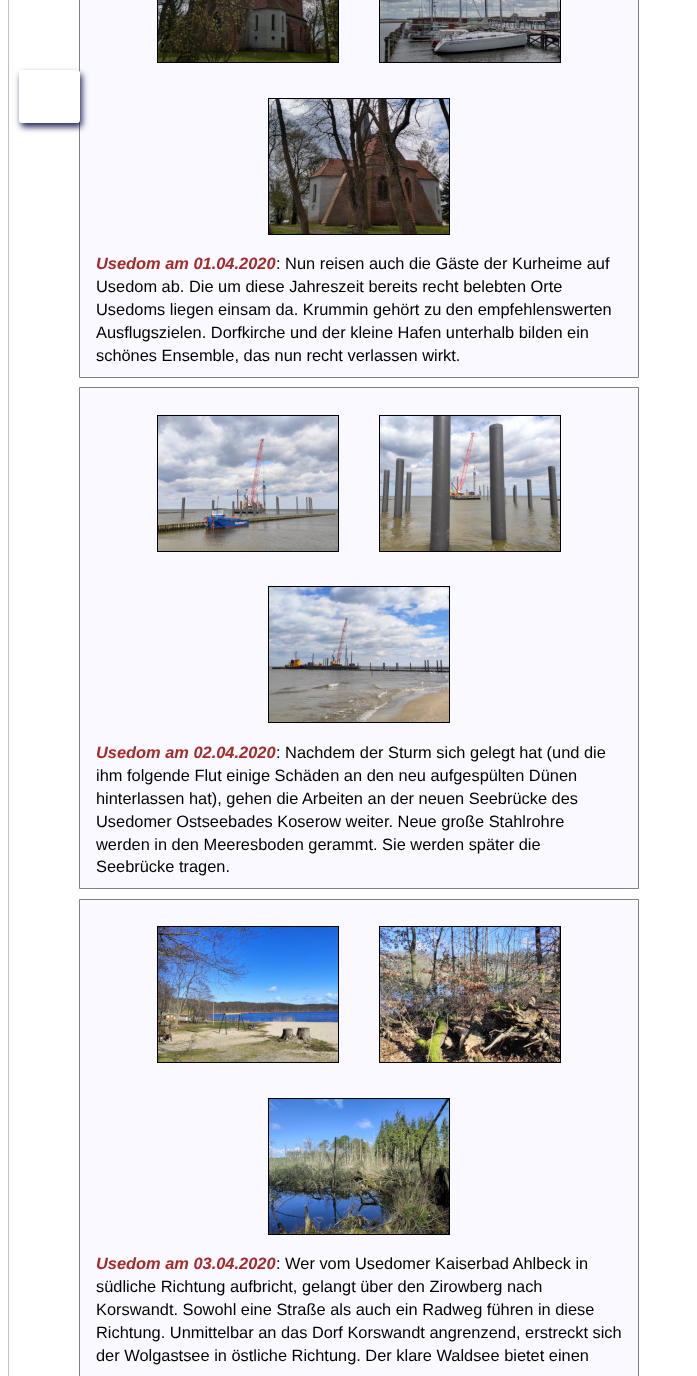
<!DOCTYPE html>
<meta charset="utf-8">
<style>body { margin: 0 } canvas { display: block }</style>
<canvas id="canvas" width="697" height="1376"></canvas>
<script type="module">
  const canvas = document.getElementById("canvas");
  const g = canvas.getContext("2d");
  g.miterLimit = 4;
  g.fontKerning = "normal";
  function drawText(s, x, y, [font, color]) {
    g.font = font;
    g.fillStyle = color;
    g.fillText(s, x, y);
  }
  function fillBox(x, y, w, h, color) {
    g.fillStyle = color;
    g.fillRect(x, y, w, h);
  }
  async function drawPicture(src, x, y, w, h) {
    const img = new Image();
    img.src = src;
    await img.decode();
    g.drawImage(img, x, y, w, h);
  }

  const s1 = ["italic bold 16.4px Liberation Sans", "#A52A2A"];
  const s2 = ["16.4px Liberation Sans", "#000000"];

  fillBox(0, 0, 697, 1376, "#FFFFFF");
  g.strokeStyle = "#C0C0C0";
  g.strokeRect(8.5, -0.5, 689, 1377);
  g.fillStyle = "#F9F9FF";
  g.beginPath();
  g.rect(79.5, -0.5, 559, 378);
  g.fill();
  g.strokeStyle = "#808080";
  g.stroke();
  g.save();
  g.beginPath();
  g.moveTo(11, 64);
  g.lineTo(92, 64);
  g.lineTo(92, 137);
  g.lineTo(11, 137);
  g.closePath();
  g.moveTo(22, 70);
  g.lineTo(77, 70);
  g.bezierCurveTo(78.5, 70, 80, 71.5, 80, 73);
  g.lineTo(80, 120);
  g.bezierCurveTo(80, 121.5, 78.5, 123, 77, 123);
  g.lineTo(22, 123);
  g.bezierCurveTo(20.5, 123, 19, 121.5, 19, 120);
  g.lineTo(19, 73);
  g.bezierCurveTo(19, 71.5, 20.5, 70, 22, 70);
  g.closePath();
  g.clip("evenodd");
  g.fillStyle = "rgba(0, 0, 64, 0.85)";
  g.filter = "blur(3px)";
  g.beginPath();
  g.roundRect(21, 74, 61, 53, 3);
  g.fill();
  g.filter = "none";
  g.restore();
  g.beginPath();
  g.roundRect(20, 71, 59, 51, 2);
  g.strokeStyle = "#FFFFFF";
  g.lineWidth = 2;
  g.stroke();
  g.strokeStyle = "#000000";
  g.lineWidth = 1;
  g.strokeRect(157.5, -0.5, 181, 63);
  g.strokeRect(379.5, -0.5, 181, 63);
  await drawPicture("pic1.png", 158, 0, 180, 62);
  await drawPicture("pic2.png", 380, 0, 180, 62);
  g.strokeRect(268.5, 98.5, 181, 136);
  await drawPicture("pic3.png", 269, 99, 180, 135);
  drawText("Usedom am 01.04.2020", 96, 269, s1);
  drawText(": Nun reisen auch die Gäste der Kurheime auf", 276, 269, s2);
  drawText("Usedom ab. Die um diese Jahreszeit bereits recht belebten Orte", 96, 292, s2);
  drawText("Usedoms liegen einsam da. Krummin gehört zu den empfehlenswerten", 96, 315, s2);
  drawText("Ausflugszielen. Dorfkirche und der kleine Hafen unterhalb bilden ein", 96, 338, s2);
  drawText("schönes Ensemble, das nun recht verlassen wirkt.", 96, 361, s2);
  g.fillStyle = "#F9F9FF";
  g.beginPath();
  g.rect(79.5, 387.5, 559, 501);
  g.fill();
  g.strokeStyle = "#808080";
  g.stroke();
  g.strokeStyle = "#000000";
  g.strokeRect(157.5, 415.5, 181, 136);
  g.strokeRect(379.5, 415.5, 181, 136);
  await drawPicture("pic4.png", 158, 416, 180, 135);
  await drawPicture("pic5.png", 380, 416, 180, 135);
  g.strokeRect(268.5, 586.5, 181, 136);
  await drawPicture("pic6.png", 269, 587, 180, 135);
  drawText("Usedom am 02.04.2020", 96, 758, s1);
  drawText(": Nachdem der Sturm sich gelegt hat (und die", 276, 758, s2);
  drawText("ihm folgende Flut einige Schäden an den neu aufgespülten Dünen", 96, 781, s2);
  drawText("hinterlassen hat), gehen die Arbeiten an der neuen Seebrücke des", 96, 804, s2);
  drawText("Usedomer Ostseebades Koserow weiter. Neue große Stahlrohre", 96, 827, s2);
  drawText("werden in den Meeresboden gerammt. Sie werden später die", 96, 850, s2);
  drawText("Seebrücke tragen.", 96, 872, s2);
  g.fillStyle = "#F9F9FF";
  g.beginPath();
  g.rect(79.5, 899.5, 559, 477);
  g.fill();
  g.strokeStyle = "#808080";
  g.stroke();
  g.strokeStyle = "#000000";
  g.strokeRect(157.5, 926.5, 181, 136);
  g.strokeRect(379.5, 926.5, 181, 136);
  await drawPicture("pic7.png", 158, 927, 180, 135);
  await drawPicture("pic8.png", 380, 927, 180, 135);
  g.strokeRect(268.5, 1098.5, 181, 136);
  await drawPicture("pic9.png", 269, 1099, 180, 135);
  drawText("Usedom am 03.04.2020", 96, 1269, s1);
  drawText(": Wer vom Usedomer Kaiserbad Ahlbeck in", 276, 1269, s2);
  drawText("südliche Richtung aufbricht, gelangt über den Zirowberg nach", 96, 1292, s2);
  drawText("Korswandt. Sowohl eine Straße als auch ein Radweg führen in diese", 96, 1315, s2);
  drawText("Richtung. Unmittelbar an das Dorf Korswandt angrenzend, erstreckt sich", 96, 1338, s2);
  drawText("der Wolgastsee in östliche Richtung. Der klare Waldsee bietet einen", 96, 1361, s2);
</script>
